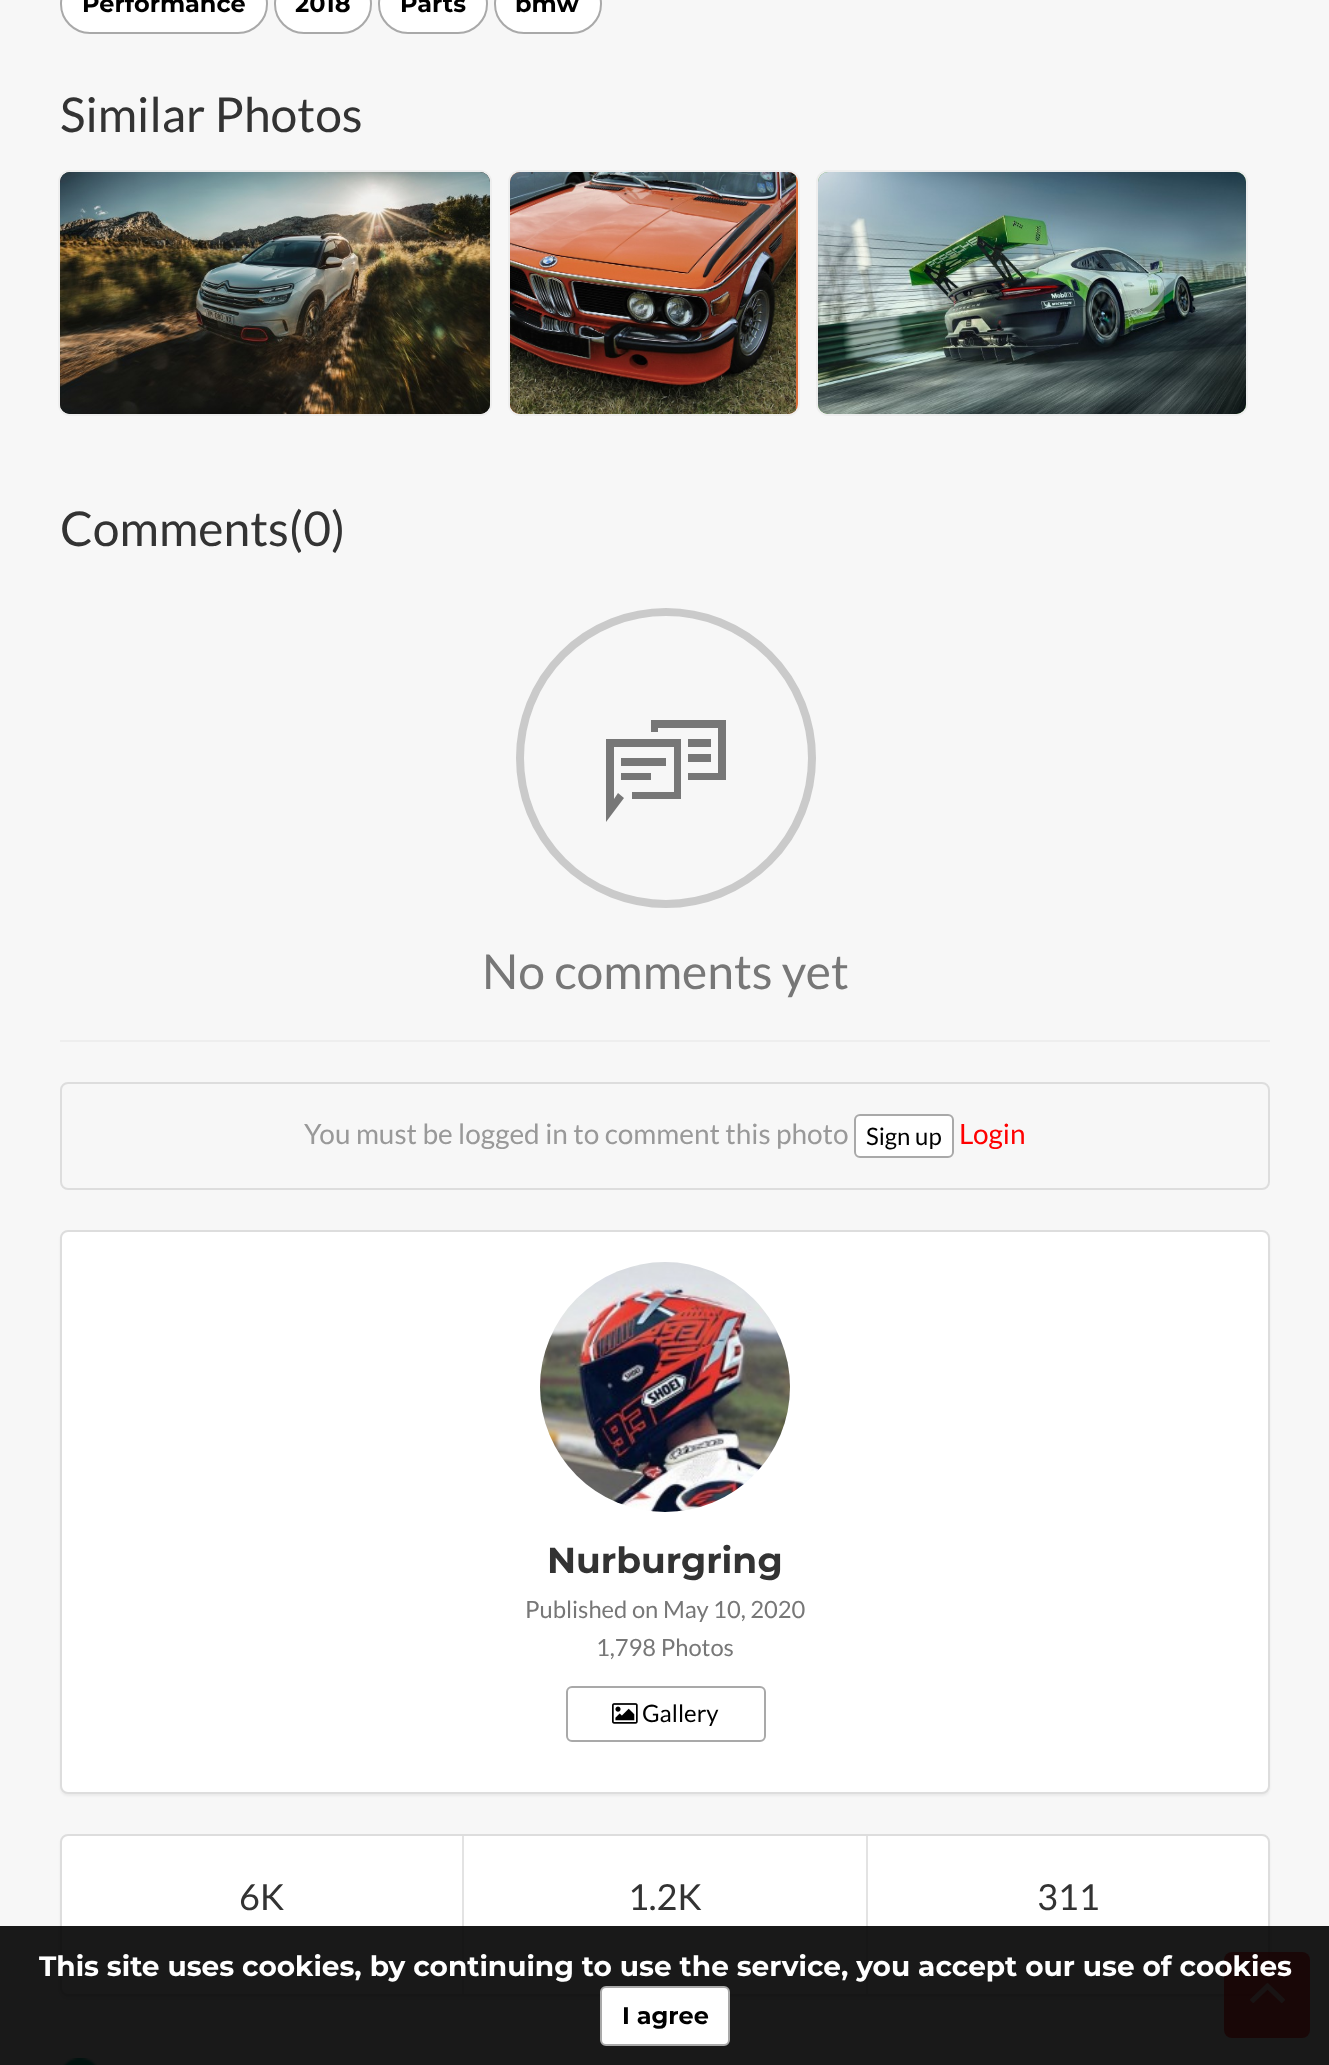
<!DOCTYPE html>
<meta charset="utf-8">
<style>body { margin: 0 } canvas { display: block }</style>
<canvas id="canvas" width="1329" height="2065"></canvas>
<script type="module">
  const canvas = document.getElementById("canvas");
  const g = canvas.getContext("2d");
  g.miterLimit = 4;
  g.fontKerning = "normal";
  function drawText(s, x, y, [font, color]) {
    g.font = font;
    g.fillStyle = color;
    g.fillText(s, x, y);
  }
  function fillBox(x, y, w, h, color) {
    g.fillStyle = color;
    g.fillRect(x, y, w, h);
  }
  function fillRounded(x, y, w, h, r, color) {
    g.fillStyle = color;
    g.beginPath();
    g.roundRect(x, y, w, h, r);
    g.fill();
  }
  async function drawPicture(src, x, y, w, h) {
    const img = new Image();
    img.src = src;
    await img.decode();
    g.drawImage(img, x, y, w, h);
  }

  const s1 = ["100 24px Montserrat", "#000000"];
  const s2 = ["48px Lato", "#333333"];
  const s3 = ["48px Lato", "#777777"];
  const s4 = ["28px Lato", "#999999"];
  const s5 = ["24px Lato", "#000000"];
  const s6 = ["28px Lato", "#FF0000"];
  const s7 = ["100 36px Montserrat", "#333333"];
  const s8 = ["23.75px Lato", "#777777"];
  const s9 = ["36px Lato", "#333333"];
  const s10 = ["100 28px Montserrat", "#FFFFFF"];

  fillBox(0, 0, 1329, 2065, "#F7F7F7");
  g.fillStyle = "#FFFFFF";
  g.beginPath();
  g.roundRect(61, -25, 206, 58, 29);
  g.fill();
  g.strokeStyle = "#A9A9A9";
  g.lineWidth = 2;
  g.stroke();
  drawText("Performance", 82, 12, s1);
  g.fillStyle = "#FFFFFF";
  g.beginPath();
  g.roundRect(275, -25, 96, 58, 29);
  g.fill();
  g.stroke();
  drawText("2018", 295, 12, s1);
  g.fillStyle = "#FFFFFF";
  g.beginPath();
  g.roundRect(379, -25, 108, 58, 29);
  g.fill();
  g.stroke();
  drawText("Parts", 400, 12, s1);
  g.fillStyle = "#FFFFFF";
  g.beginPath();
  g.roundRect(495, -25, 106, 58, 29);
  g.fill();
  g.stroke();
  drawText("bmw", 515, 12, s1);
  drawText("Similar Photos", 60, 132, s2);
  g.fillStyle = "#171813";
  g.beginPath();
  g.roundRect(59, 171, 432, 244, 11);
  g.fill();
  g.strokeStyle = "#EEEEEE";
  g.stroke();
  await drawPicture("pic1.png", 60, 172, 430, 242);
  g.fillStyle = "#DA6C37";
  g.beginPath();
  g.roundRect(509, 171, 290, 244, 11);
  g.fill();
  g.stroke();
  await drawPicture("pic2.png", 510, 172, 286, 242);
  g.fillStyle = "#5EA549";
  g.beginPath();
  g.roundRect(817, 171, 430, 244, 11);
  g.fill();
  g.stroke();
  await drawPicture("pic3.png", 818, 172, 428, 242);
  drawText("Comments(0)", 60, 546, s2);
  g.beginPath();
  g.arc(666, 758, 146, 0, Math.PI * 2);
  g.strokeStyle = "#CACACA";
  g.lineWidth = 8;
  g.stroke();
  g.fillStyle = "#777777";
  g.beginPath();
  g.moveTo(726, 780);
  g.lineTo(688, 780);
  g.lineTo(688, 773);
  g.lineTo(718, 773);
  g.lineTo(718, 728);
  g.lineTo(658, 728);
  g.lineTo(658, 732);
  g.lineTo(651, 732);
  g.lineTo(651, 720);
  g.lineTo(726, 720);
  g.closePath();
  g.moveTo(688, 739);
  g.lineTo(711, 739);
  g.lineTo(711, 747);
  g.lineTo(688, 747);
  g.closePath();
  g.moveTo(688, 754);
  g.lineTo(711, 754);
  g.lineTo(711, 762);
  g.lineTo(688, 762);
  g.closePath();
  g.moveTo(621, 758);
  g.lineTo(666, 758);
  g.lineTo(666, 766);
  g.lineTo(621, 766);
  g.closePath();
  g.moveTo(621, 773);
  g.lineTo(651, 773);
  g.lineTo(651, 780);
  g.lineTo(621, 780);
  g.closePath();
  g.moveTo(606, 822);
  g.lineTo(606, 739);
  g.lineTo(681, 739);
  g.lineTo(681, 799);
  g.lineTo(632, 799);
  g.lineTo(632, 792);
  g.lineTo(674, 792);
  g.lineTo(674, 747);
  g.lineTo(614, 747);
  g.lineTo(614, 799);
  g.lineTo(618, 793);
  g.lineTo(624, 798);
  g.closePath();
  g.fill();
  drawText("No comments yet", 482, 989, s3);
  fillBox(60, 1040, 1210, 2, "#EEEEEE");
  g.beginPath();
  g.roundRect(61, 1083, 1208, 106, 7);
  g.strokeStyle = "#DDDDDD";
  g.lineWidth = 2;
  g.stroke();
  drawText("You must be logged in to comment this photo", 304, 1144, s4);
  g.fillStyle = "#FFFFFF";
  g.beginPath();
  g.roundRect(855, 1115, 98, 42, 5);
  g.fill();
  g.strokeStyle = "#A9A9A9";
  g.stroke();
  drawText("Sign up", 866, 1145, s5);
  drawText("Login", 959, 1144, s6);
  g.fillStyle = "rgba(0, 0, 0, 0.05)";
  g.filter = "blur(1px)";
  g.beginPath();
  g.roundRect(60, 1232, 1210, 564, 8);
  g.fill();
  g.filter = "none";
  g.fillStyle = "#FFFFFF";
  g.beginPath();
  g.roundRect(61, 1231, 1208, 562, 7);
  g.fill();
  g.strokeStyle = "#DDDDDD";
  g.stroke();
  await drawPicture("pic4.png", 540, 1262, 250, 250);
  drawText("Nurburgring", 547, 1573, s7);
  drawText("Published on May 10, 2020", 525, 1618, s8);
  drawText("1,798 Photos", 596, 1656, s8);
  g.beginPath();
  g.roundRect(567, 1687, 198, 54, 5);
  g.strokeStyle = "#A9A9A9";
  g.stroke();
  await drawPicture("pic5.png", 612, 1703, 26, 21);
  drawText("Gallery", 642, 1722, s5);
  g.fillStyle = "rgba(0, 0, 0, 0.05)";
  g.filter = "blur(1px)";
  g.beginPath();
  g.roundRect(60, 1836, 1210, 162, 8);
  g.fill();
  g.filter = "none";
  g.fillStyle = "#FFFFFF";
  g.beginPath();
  g.roundRect(61, 1835, 1208, 160, 7);
  g.fill();
  g.strokeStyle = "#DDDDDD";
  g.stroke();
  fillBox(462, 1836, 2, 158, "#E3E3E3");
  drawText("6K", 239, 1910, s9);
  drawText("1.2K", 628, 1910, s9);
  fillBox(866, 1836, 2, 158, "#E3E3E3");
  drawText("311", 1037, 1910, s9);
  await drawPicture("pic6.png", 63, 2058, 34, 7);
  fillRounded(1224, 1952, 86, 86, 8, "rgba(255, 0, 0, 0.7)");
  await drawPicture("pic7.png", 1250, 1983, 35, 20);
  fillBox(0, 1926, 1329, 139, "rgba(0, 0, 0, 0.9)");
  drawText("This site uses cookies, by continuing to use the service, you accept our use of cookies", 39, 1976, s10);
  g.beginPath();
  g.roundRect(601, 1987, 128, 58, 5);
  g.fill();
  g.strokeStyle = "#A9A9A9";
  g.stroke();
  drawText("I agree", 622, 2024, s1);
</script>
